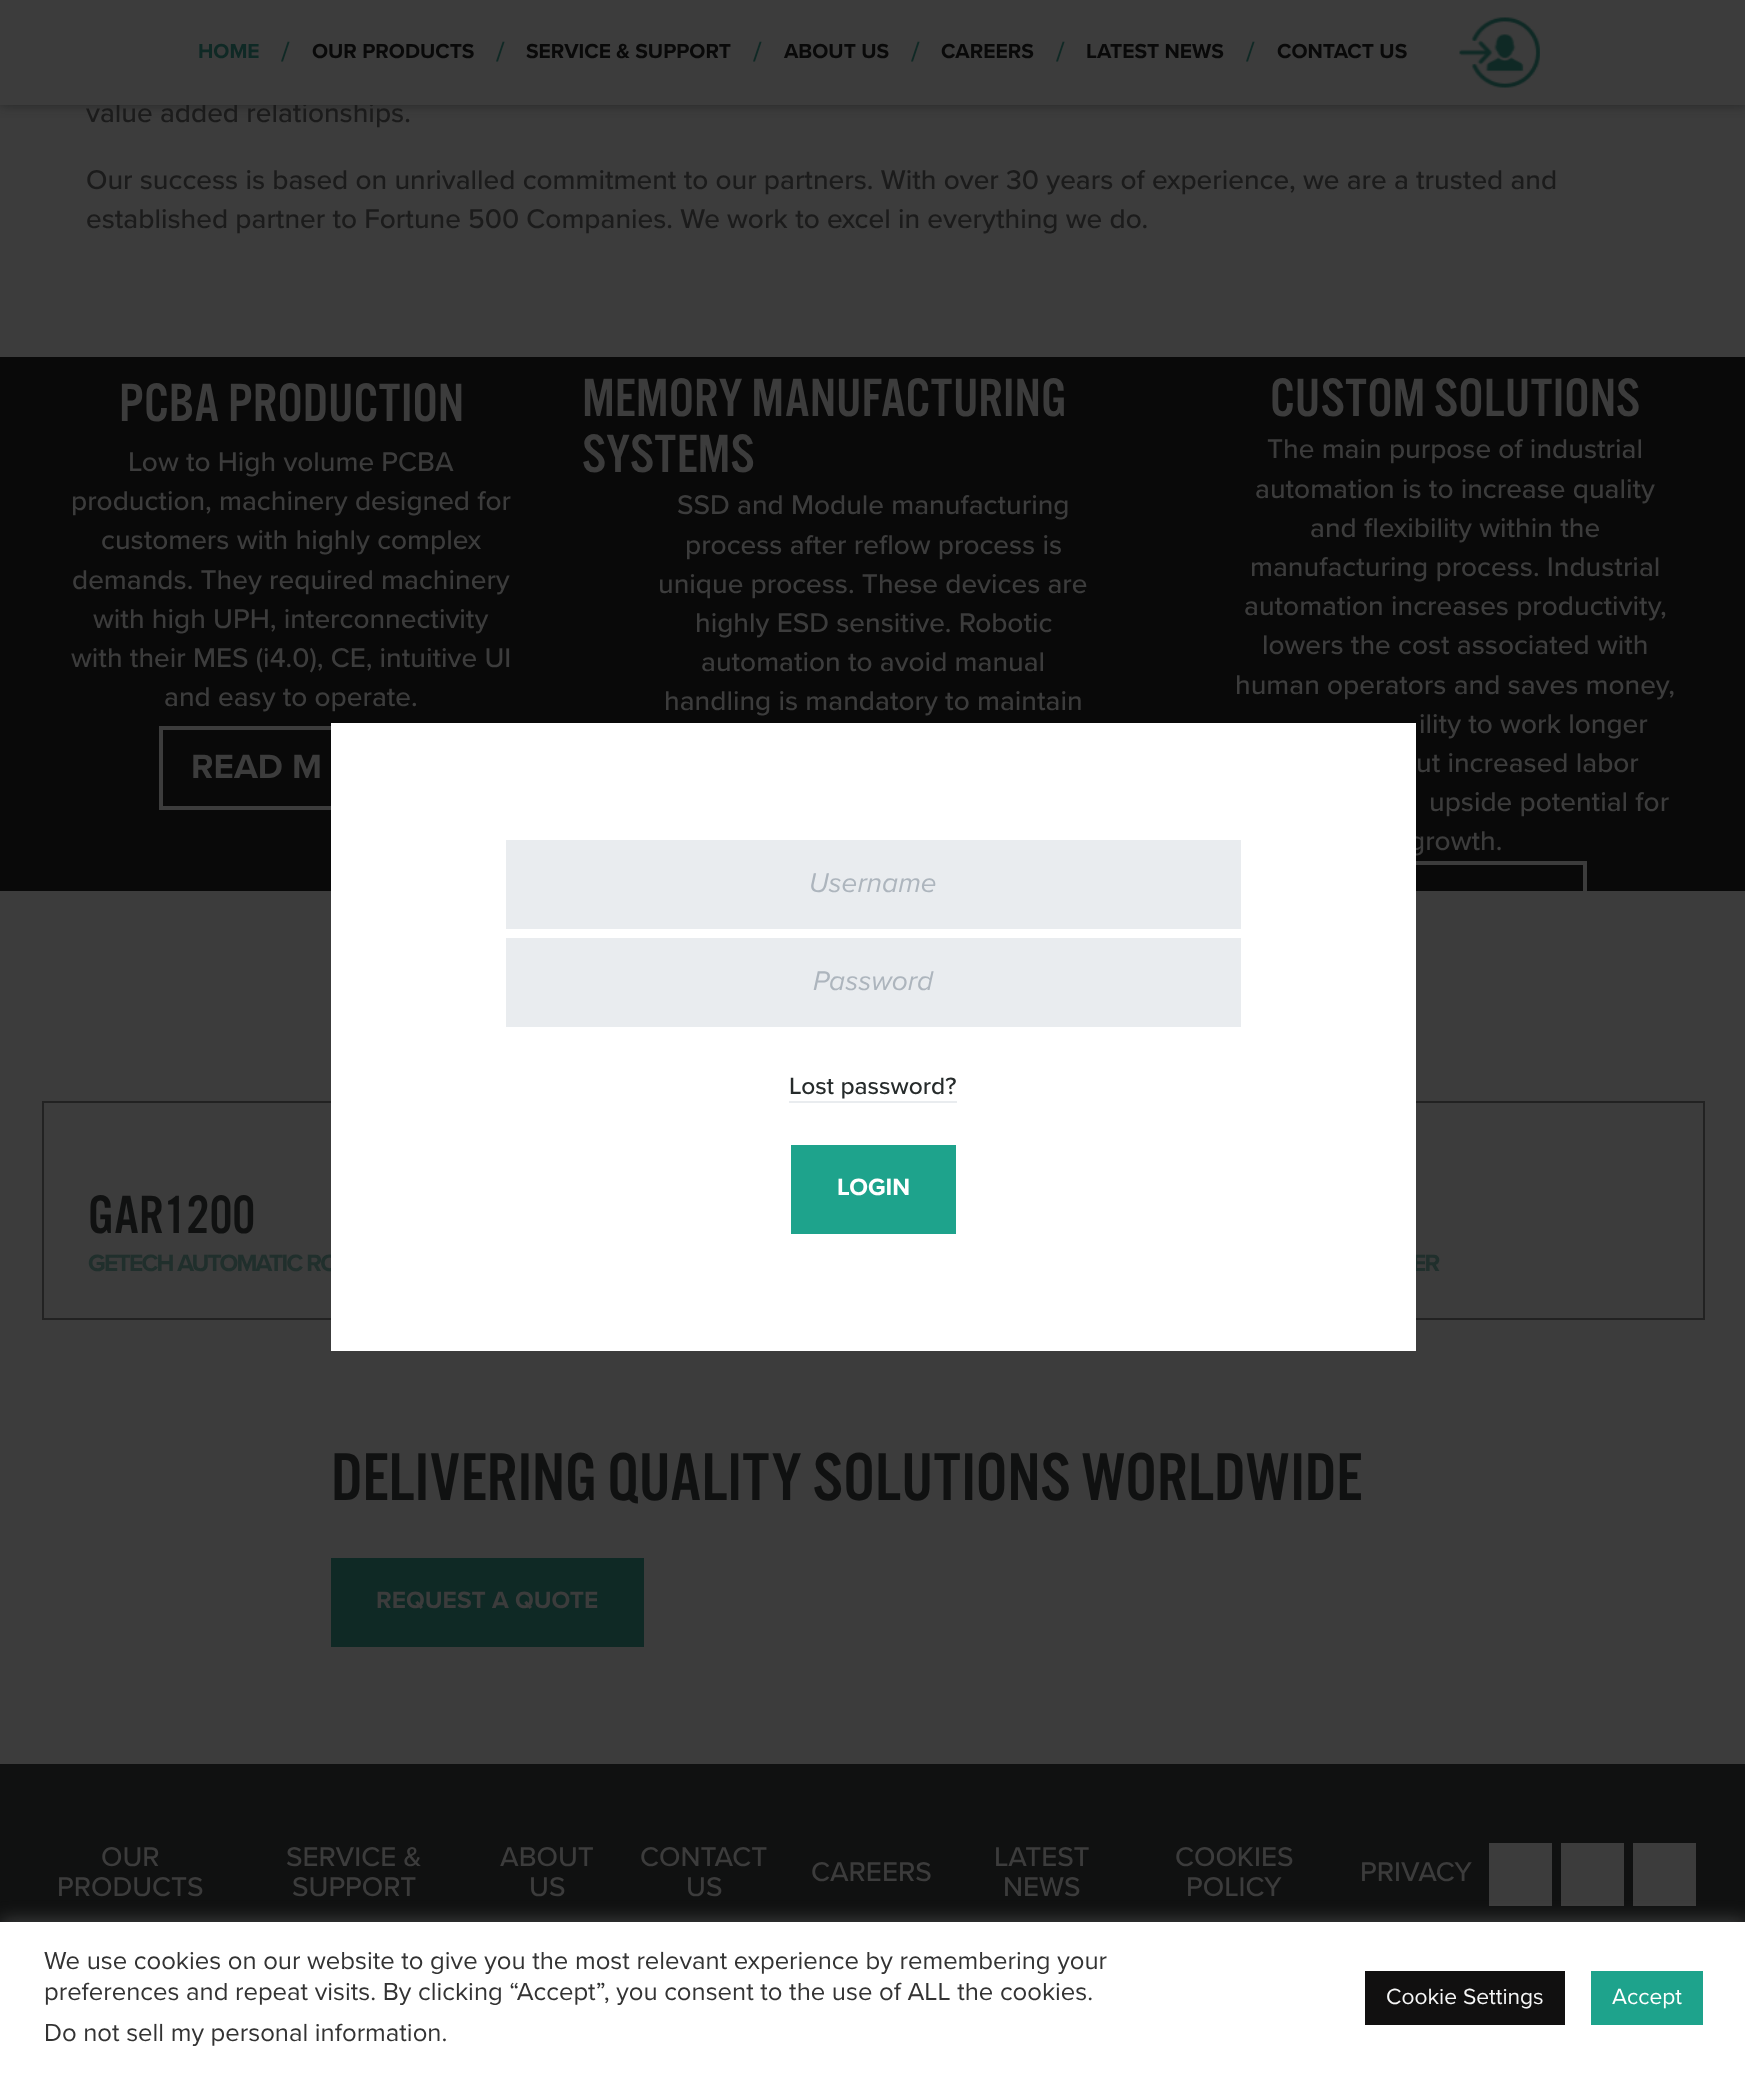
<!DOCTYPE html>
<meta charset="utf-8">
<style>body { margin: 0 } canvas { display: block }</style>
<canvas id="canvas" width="1745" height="2073"></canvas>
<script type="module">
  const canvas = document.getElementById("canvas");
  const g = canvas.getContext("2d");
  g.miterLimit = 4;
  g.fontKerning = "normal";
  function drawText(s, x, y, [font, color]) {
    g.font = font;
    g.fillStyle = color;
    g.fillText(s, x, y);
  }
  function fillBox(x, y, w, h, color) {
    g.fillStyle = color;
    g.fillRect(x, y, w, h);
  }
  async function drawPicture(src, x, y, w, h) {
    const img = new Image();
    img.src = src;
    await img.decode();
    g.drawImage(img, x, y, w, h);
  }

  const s1 = ["500 28px Proxima Nova", "#1B1B1B"];
  const s2 = ["bold 21px Proxima Nova", "#0F2925"];
  const s3 = ["500 28px Proxima Nova", "#0F2925"];
  const s4 = ["bold 21px Proxima Nova", "#090909"];
  const s5 = ["56px 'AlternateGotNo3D'", "#3C3C3C"];
  const s6 = ["500 28px Proxima Nova", "#3C3C3C"];
  const s7 = ["bold 35px Proxima Nova", "#3C3C3C"];
  const s8 = ["56px 'AlternateGotNo3D'", "#101111"];
  const s9 = ["bold 24.5px Proxima Nova", "#202F2C"];
  const s10 = ["70px 'AlternateGotNo3D'", "#101111"];
  const s11 = ["bold 24.5px Proxima Nova", "#3C3C3C"];
  const s12 = ["italic 28px Proxima Nova", "#ADB5BD"];
  const s13 = ["500 24.5px Proxima Nova", "#262B2B"];
  const s14 = ["bold 24.5px Proxima Nova", "#FFFFFF"];
  const s15 = ["25.65px Proxima Nova", "#333333"];
  const s16 = ["22.75px Proxima Nova", "#F7F7F7"];
  const s17 = ["22.75px Proxima Nova", "#FFFFFF"];

  fillBox(0, 0, 1745, 2073, "#3C3C3C");
  g.fillStyle = "rgba(16, 17, 17, 0.5)";
  g.filter = "blur(6px)";
  g.beginPath();
  g.rect(0, 0, 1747, 105);
  g.fill();
  g.filter = "none";
  drawText("value added relationships.", 86, 122, s1);
  fillBox(0, 0, 1745, 105, "#3C3C3C");
  drawText("HOME", 198, 58, s2);
  drawText("/", 281, 61, s3);
  drawText("OUR PRODUCTS", 312, 58, s4);
  drawText("/", 496, 61, s3);
  drawText("SERVICE & SUPPORT", 526, 58, s4);
  drawText("/", 753, 61, s3);
  drawText("ABOUT US", 784, 58, s4);
  drawText("/", 911, 61, s3);
  drawText("CAREERS", 941, 58, s4);
  drawText("/", 1056, 61, s3);
  drawText("LATEST NEWS", 1086, 58, s4);
  drawText("/", 1246, 61, s3);
  drawText("CONTACT US", 1277, 58, s4);
  await drawPicture("pic1.png", 1459, 17, 81, 71);
  drawText("Our success is based on unrivalled commitment to our partners. With over 30 years of experience, we are a trusted and", 86, 189, s1);
  drawText("established partner to Fortune 500 Companies. We work to excel in everything we do.", 86, 228, s1);
  fillBox(0, 357, 583, 534, "#090909");
  drawText("PCBA PRODUCTION", 119, 421, s5);
  drawText("Low to High volume PCBA", 128, 471, s6);
  drawText("production, machinery designed for", 71, 510, s6);
  drawText("customers with highly complex", 101, 549, s6);
  drawText("demands. They required machinery", 72, 589, s6);
  drawText("with high UPH, interconnectivity", 93, 628, s6);
  drawText("with their MES (i4.0), CE, intuitive UI", 71, 667, s6);
  drawText("and easy to operate.", 164, 706, s6);
  g.strokeStyle = "#3C3C3C";
  g.lineWidth = 4;
  g.strokeRect(161, 728, 261, 80);
  drawText("READ M", 191, 778, s7);
  fillBox(583, 357, 581, 366, "#090909");
  drawText("MEMORY MANUFACTURING", 582, 416, s5);
  drawText("SYSTEMS", 582, 472, s5);
  drawText("SSD and Module manufacturing", 677, 514, s6);
  drawText("process after reflow process is", 685, 554, s6);
  drawText("unique process. These devices are", 658, 593, s6);
  drawText("highly ESD sensitive. Robotic", 695, 632, s6);
  drawText("automation to avoid manual", 701, 671, s6);
  drawText("handling is mandatory to maintain", 664, 710, s6);
  fillBox(1164, 357, 581, 534, "#090909");
  drawText("CUSTOM SOLUTIONS", 1270, 416, s5);
  drawText("The main purpose of industrial", 1267, 458, s6);
  drawText("automation is to increase quality", 1255, 498, s6);
  drawText("and flexibility within the", 1310, 537, s6);
  drawText("manufacturing process. Industrial", 1250, 576, s6);
  drawText("automation increases productivity,", 1244, 615, s6);
  drawText("lowers the cost associated with", 1262, 654, s6);
  drawText("human operators and saves money,", 1235, 694, s6);
  drawText("ility to work longer", 1419, 733, s6);
  drawText("ut increased labor", 1416, 772, s6);
  drawText("upside potential for", 1429, 811, s6);
  drawText("growth.", 1409, 850, s6);
  g.save();
  g.beginPath();
  g.rect(1164, 357, 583, 534);
  g.clip();
  g.strokeRect(1325, 863, 260, 80);
  g.restore();
  g.strokeStyle = "#222222";
  g.lineWidth = 2;
  g.strokeRect(43, 1102, 541, 217);
  drawText("GAR1200", 88, 1233, s8);
  g.letterSpacing = "-1.75px";
  drawText("GETECH AUTOMATIC RO", 88, 1271, s9);
  g.strokeRect(1163, 1102, 541, 217);
  drawText("ER", 1412, 1271, s9);
  g.letterSpacing = "0px";
  drawText("DELIVERING QUALITY SOLUTIONS WORLDWIDE", 331, 1500, s10);
  fillBox(331, 1558, 313, 89, "#0F2925");
  drawText("REQUEST A QUOTE", 376, 1608, s11);
  fillBox(0, 1764, 1745, 158, "#101111");
  drawText("OUR", 101, 1866, s6);
  drawText("PRODUCTS", 57, 1896, s6);
  drawText("SERVICE &", 286, 1866, s6);
  drawText("SUPPORT", 292, 1896, s6);
  drawText("ABOUT", 500, 1866, s6);
  drawText("US", 529, 1896, s6);
  drawText("CONTACT", 640, 1866, s6);
  drawText("US", 686, 1896, s6);
  drawText("CAREERS", 811, 1881, s6);
  drawText("LATEST", 994, 1866, s6);
  drawText("NEWS", 1003, 1896, s6);
  drawText("COOKIES", 1175, 1866, s6);
  drawText("POLICY", 1186, 1896, s6);
  drawText("PRIVACY", 1360, 1881, s6);
  fillBox(1489, 1843, 63, 63, "#3C3C3C");
  fillBox(1561, 1843, 63, 63, "#3C3C3C");
  fillBox(1633, 1843, 63, 63, "#3C3C3C");
  fillBox(331, 723, 1085, 628, "#FFFFFF");
  g.fillStyle = "#E9ECEF";
  g.beginPath();
  g.rect(508, 842, 731, 85);
  g.fill();
  g.strokeStyle = "#E9ECEF";
  g.lineWidth = 4;
  g.stroke();
  drawText("Username", 809, 892, s12);
  g.fillStyle = "#E9ECEF";
  g.beginPath();
  g.rect(508, 940, 731, 85);
  g.fill();
  g.stroke();
  drawText("Password", 813, 990, s12);
  drawText("Lost password?", 789, 1094, s13);
  fillBox(789, 1101, 168, 2, "#E9ECEF");
  fillBox(791, 1145, 165, 89, "#1EA38C");
  drawText("LOGIN", 837, 1195, s14);
  g.fillStyle = "rgba(172, 171, 171, 0.3)";
  g.filter = "blur(9px)";
  g.beginPath();
  g.rect(0, 1920, 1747, 152);
  g.fill();
  g.filter = "none";
  fillBox(0, 1922, 1745, 151, "#FFFFFF");
  drawText("We use cookies on our website to give you the most relevant experience by remembering your", 44, 1969, s15);
  drawText("preferences and repeat visits. By clicking “Accept”, you consent to the use of ALL the cookies.", 44, 2000, s15);
  drawText("Do not sell my personal information.", 44, 2041, s15);
  fillBox(1365, 1971, 200, 54, "#111010");
  drawText("Cookie Settings", 1386, 2004, s16);
  fillBox(1591, 1971, 112, 54, "#1EA38C");
  drawText("Accept", 1612, 2004, s17);
</script>
